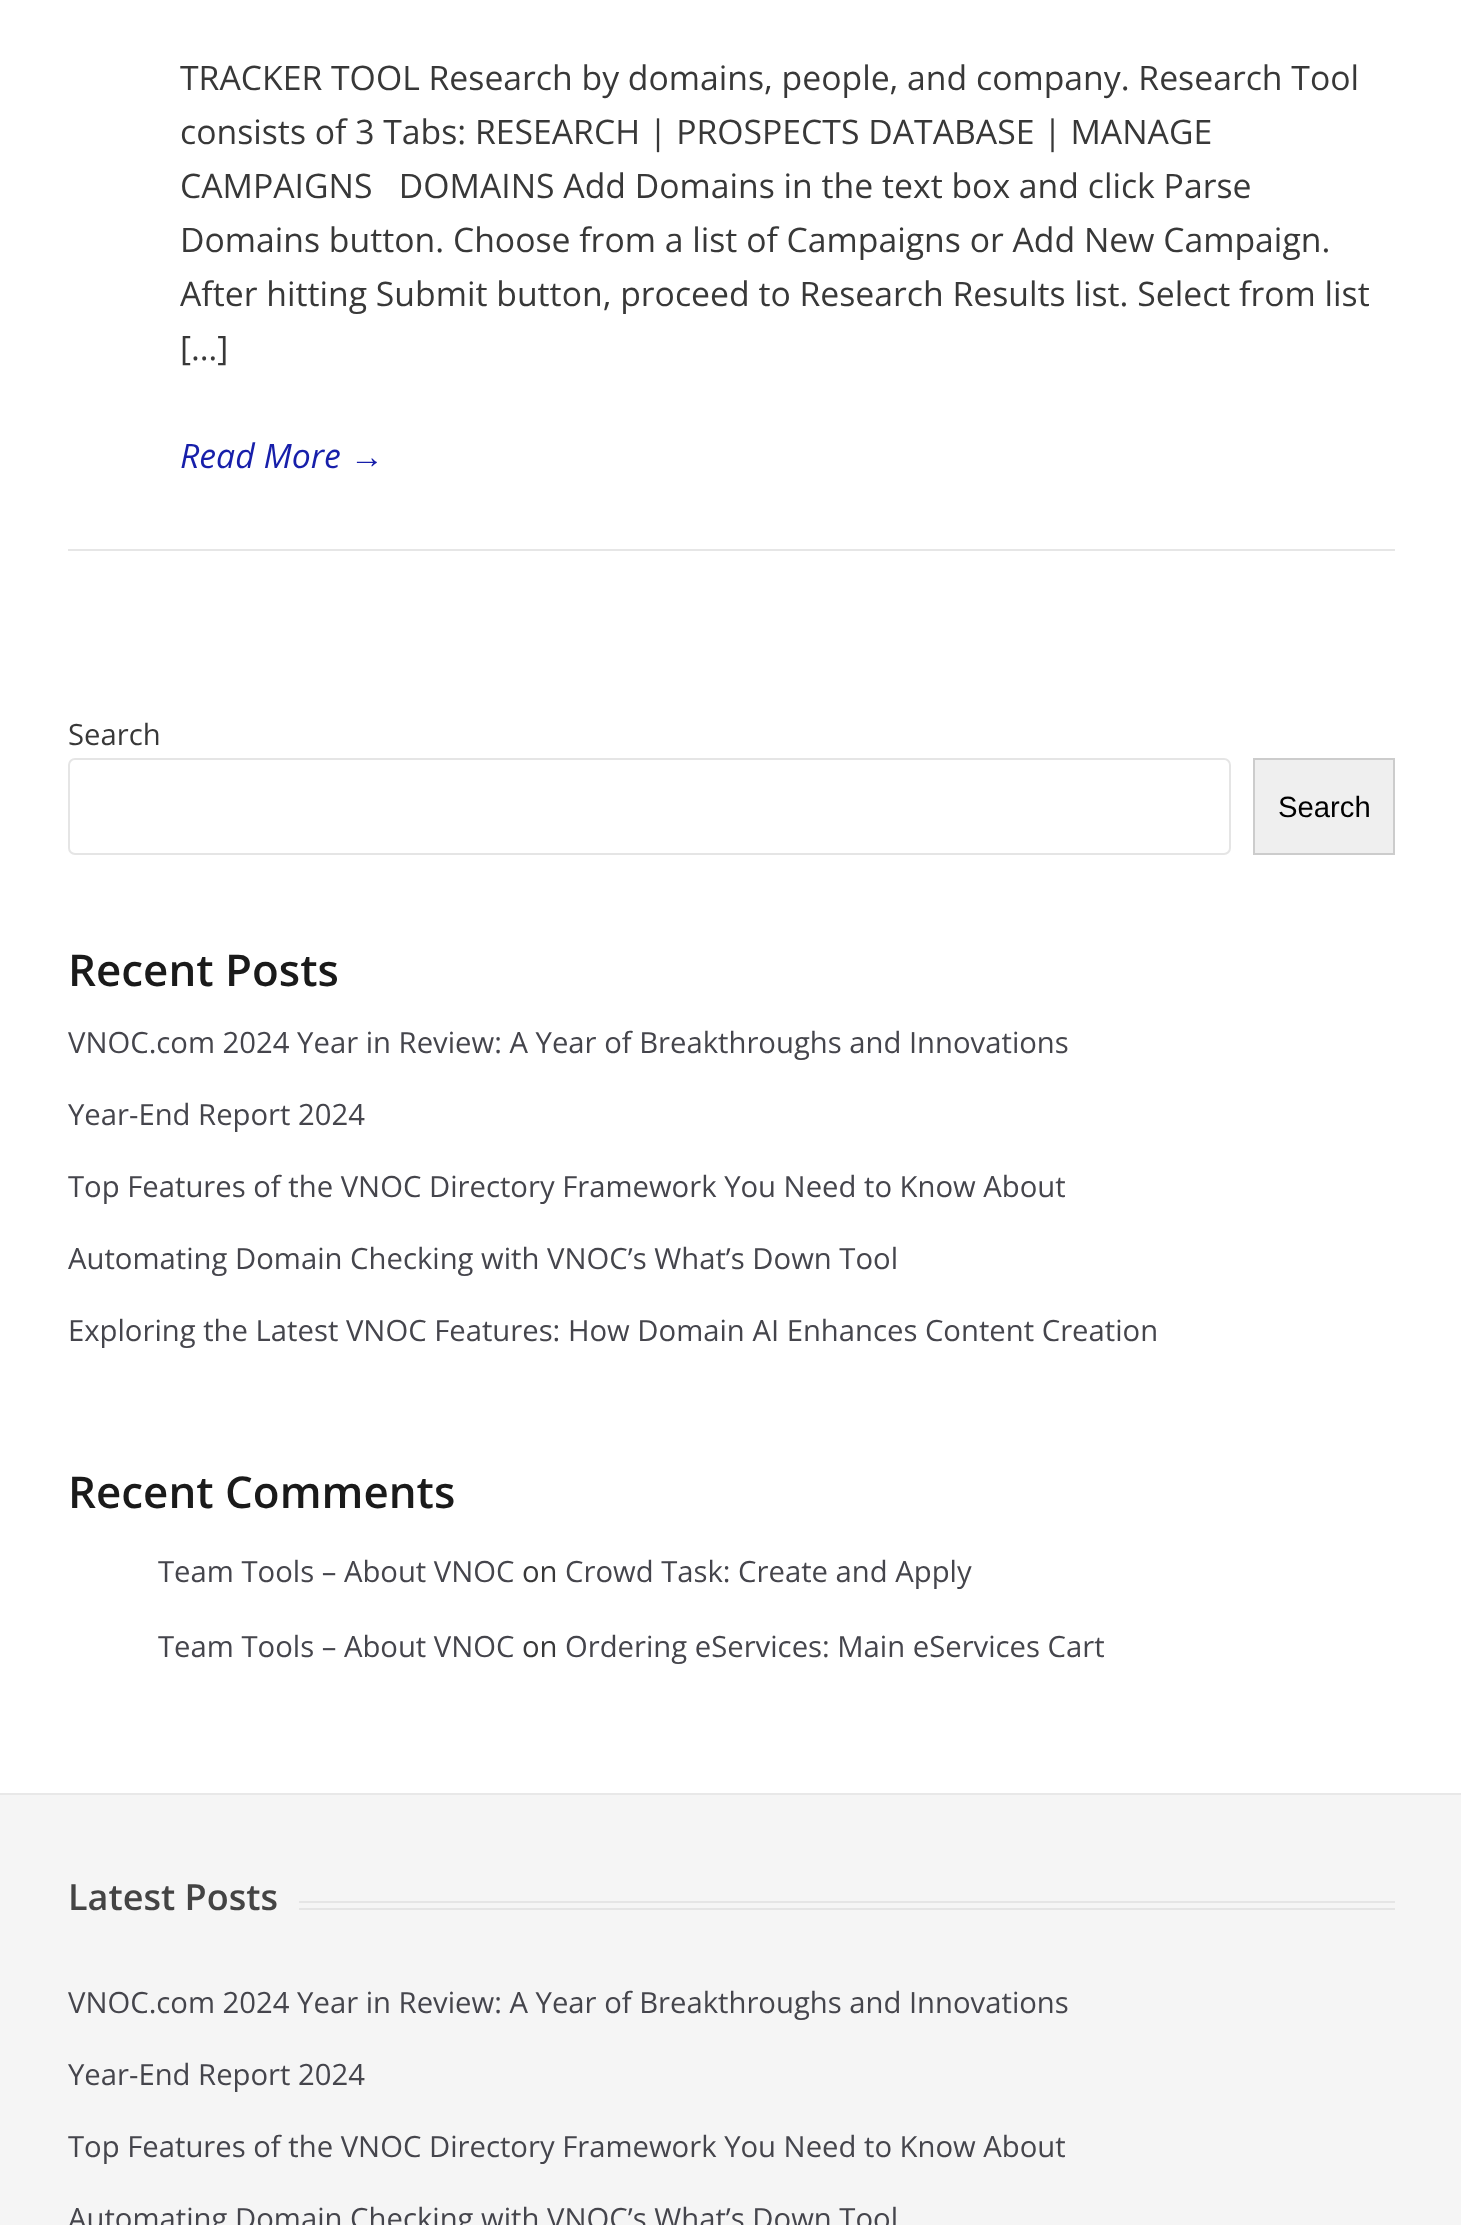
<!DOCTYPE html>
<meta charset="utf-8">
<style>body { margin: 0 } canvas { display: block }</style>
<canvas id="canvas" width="1461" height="2225"></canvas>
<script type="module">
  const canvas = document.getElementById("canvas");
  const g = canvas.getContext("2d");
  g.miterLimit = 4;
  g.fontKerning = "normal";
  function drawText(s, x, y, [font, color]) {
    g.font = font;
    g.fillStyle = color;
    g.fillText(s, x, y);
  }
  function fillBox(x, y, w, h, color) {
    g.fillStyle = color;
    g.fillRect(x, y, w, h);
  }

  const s1 = ["33.75px Open Sans", "#383838"];
  const s2 = ["italic 33.75px Open Sans", "#171FAA"];
  const s3 = ["italic 33.75px Liberation Sans", "#171FAA"];
  const s4 = ["29.25px Open Sans", "#383838"];
  const s5 = ["29.25px Liberation Sans", "#000000"];
  const s6 = ["600 43.9px Open Sans", "#1A1A1A"];
  const s7 = ["29.25px Open Sans", "#45454C"];
  const s8 = ["600 36px Open Sans", "#444444"];

  fillBox(0, 0, 1461, 2225, "#FFFFFF");
  fillBox(68, 549, 1327, 2, "#E6E6E6");
  drawText("TRACKER TOOL Research by domains, people, and company. Research Tool", 180, 90, s1);
  drawText("consists of 3 Tabs: RESEARCH | PROSPECTS DATABASE | MANAGE", 180, 144, s1);
  drawText("CAMPAIGNS   DOMAINS Add Domains in the text box and click Parse", 180, 198, s1);
  drawText("Domains button. Choose from a list of Campaigns or Add New Campaign.", 180, 252, s1);
  drawText("After hitting Submit button, proceed to Research Results list. Select from list", 180, 306, s1);
  drawText("[…]", 180, 360, s1);
  drawText("Read More", 180, 468, s2);
  drawText("→", 350, 468, s3);
  drawText("Search", 68, 745, s4);
  g.beginPath();
  g.roundRect(69, 759, 1161, 95, 6);
  g.strokeStyle = "#E5E5E5";
  g.lineWidth = 2;
  g.stroke();
  g.fillStyle = "#EFEFEF";
  g.beginPath();
  g.rect(1254, 759, 140, 95);
  g.fill();
  g.strokeStyle = "#CCCCCC";
  g.stroke();
  drawText("Search", 1278, 817, s5);
  drawText("Recent Posts", 68, 986, s6);
  drawText("VNOC.com 2024 Year in Review: A Year of Breakthroughs and Innovations", 68, 1053, s7);
  drawText("Year-End Report 2024", 68, 1125, s7);
  drawText("Top Features of the VNOC Directory Framework You Need to Know About", 68, 1197, s7);
  drawText("Automating Domain Checking with VNOC’s What’s Down Tool", 68, 1269, s7);
  drawText("Exploring the Latest VNOC Features: How Domain AI Enhances Content Creation", 68, 1341, s7);
  drawText("Recent Comments", 68, 1508, s6);
  drawText("Team Tools – About VNOC", 158, 1582, s7);
  drawText("on", 522, 1582, s4);
  drawText("Crowd Task: Create and Apply", 565, 1582, s7);
  drawText("Team Tools – About VNOC", 158, 1657, s7);
  drawText("on", 522, 1657, s4);
  drawText("Ordering eServices: Main eServices Cart", 565, 1657, s7);
  fillBox(0, 1795, 1461, 430, "#F5F5F5");
  fillBox(0, 1793, 1461, 2, "#E8E8E8");
  fillBox(299, 1901, 1096, 2, "#E5E5E5");
  fillBox(299, 1908, 1096, 2, "#E5E5E5");
  drawText("Latest Posts", 68, 1910, s8);
  drawText("VNOC.com 2024 Year in Review: A Year of Breakthroughs and Innovations", 68, 2013, s7);
  drawText("Year-End Report 2024", 68, 2085, s7);
  drawText("Top Features of the VNOC Directory Framework You Need to Know About", 68, 2157, s7);
  drawText("Automating Domain Checking with VNOC’s What’s Down Tool", 68, 2229, s7);
</script>
